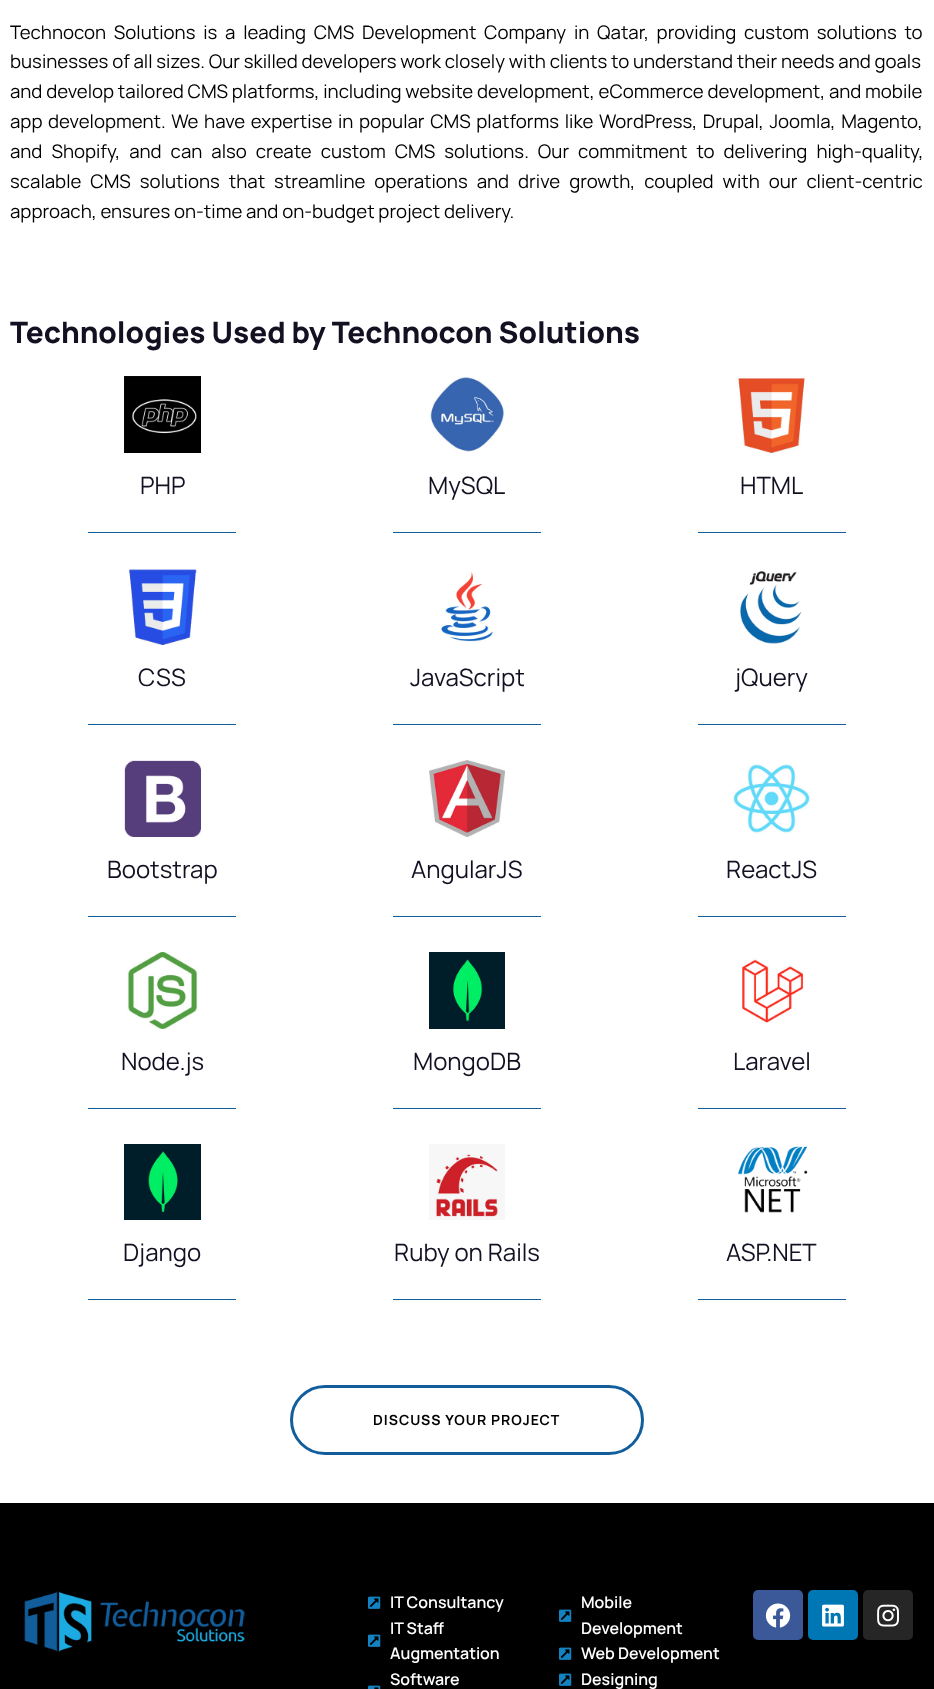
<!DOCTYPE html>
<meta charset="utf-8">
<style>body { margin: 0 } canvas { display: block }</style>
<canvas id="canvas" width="934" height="1689"></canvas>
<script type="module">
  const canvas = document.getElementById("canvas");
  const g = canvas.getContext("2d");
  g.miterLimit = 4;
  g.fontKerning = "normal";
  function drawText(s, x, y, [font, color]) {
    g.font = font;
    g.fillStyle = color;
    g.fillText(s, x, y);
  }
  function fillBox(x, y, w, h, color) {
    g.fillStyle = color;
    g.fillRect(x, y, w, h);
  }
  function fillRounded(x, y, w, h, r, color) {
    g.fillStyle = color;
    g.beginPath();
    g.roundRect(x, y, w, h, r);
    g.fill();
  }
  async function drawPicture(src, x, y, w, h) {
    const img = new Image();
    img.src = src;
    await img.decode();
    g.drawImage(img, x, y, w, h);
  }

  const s1 = ["18.65px Manrope", "#000000"];
  const s2 = ["800 29.6px Manrope", "#131022"];
  const s3 = ["24px Manrope", "#131022"];
  const s4 = ["bold 14px Manrope", "#000000"];
  const s5 = ["600 16px Manrope", "#FFFFFF"];

  fillBox(0, 0, 934, 1689, "#FFFFFF");
  g.wordSpacing = "4px";
  drawText("Technocon Solutions is a leading CMS Development Company in Qatar, providing custom solutions to", 10, 39, s1);
  g.wordSpacing = "0px";
  drawText("businesses of all sizes. Our skilled developers work closely with clients to understand their needs and goals", 10, 68, s1);
  drawText("and develop tailored CMS platforms, including website development, eCommerce development, and mobile", 10, 98, s1);
  g.wordSpacing = "1.9px";
  drawText("app development. We have expertise in popular CMS platforms like WordPress, Drupal, Joomla, Magento,", 10, 128, s1);
  g.wordSpacing = "5.25px";
  drawText("and Shopify, and can also create custom CMS solutions. Our commitment to delivering high-quality,", 10, 158, s1);
  drawText("scalable CMS solutions that streamline operations and drive growth, coupled with our client-centric", 10, 188, s1);
  g.wordSpacing = "0px";
  drawText("approach, ensures on-time and on-budget project delivery.", 10, 218, s1);
  drawText("Technologies Used by Technocon Solutions", 10, 343, s2);
  await drawPicture("pic1.png", 124, 376, 77, 77);
  drawText("PHP", 140, 494, s3);
  fillBox(88, 532, 148, 1, "#125E9C");
  await drawPicture("pic2.png", 429, 376, 76, 77);
  drawText("MySQL", 428, 494, s3);
  fillBox(393, 532, 148, 1, "#125E9C");
  await drawPicture("pic3.png", 736, 376, 71, 77);
  drawText("HTML", 740, 494, s3);
  fillBox(698, 532, 148, 1, "#125E9C");
  await drawPicture("pic4.png", 128, 568, 70, 77);
  drawText("CSS", 138, 686, s3);
  fillBox(88, 724, 148, 1, "#125E9C");
  await drawPicture("pic5.png", 441, 571, 52, 71);
  drawText("JavaScript", 410, 686, s3);
  fillBox(393, 724, 148, 1, "#125E9C");
  await drawPicture("pic6.png", 739, 571, 63, 73);
  drawText("jQuery", 735, 686, s3);
  fillBox(698, 724, 148, 1, "#125E9C");
  await drawPicture("pic7.png", 124, 760, 77, 77);
  drawText("Bootstrap", 107, 878, s3);
  fillBox(88, 916, 148, 1, "#125E9C");
  await drawPicture("pic8.png", 429, 760, 76, 77);
  drawText("AngularJS", 411, 878, s3);
  fillBox(393, 916, 148, 1, "#125E9C");
  await drawPicture("pic9.png", 733, 763, 77, 71);
  drawText("ReactJS", 726, 878, s3);
  fillBox(698, 916, 148, 1, "#125E9C");
  await drawPicture("pic10.png", 127, 952, 71, 77);
  drawText("Node.js", 121, 1070, s3);
  fillBox(88, 1108, 148, 1, "#125E9C");
  await drawPicture("pic11.png", 429, 952, 76, 77);
  drawText("MongoDB", 413, 1070, s3);
  fillBox(393, 1108, 148, 1, "#125E9C");
  await drawPicture("pic12.png", 742, 958, 62, 65);
  drawText("Laravel", 733, 1070, s3);
  fillBox(698, 1108, 148, 1, "#125E9C");
  await drawPicture("pic13.png", 124, 1144, 77, 76);
  drawText("Django", 123, 1261, s3);
  fillBox(88, 1299, 148, 1, "#125E9C");
  await drawPicture("pic14.png", 429, 1144, 76, 76);
  drawText("Ruby on Rails", 394, 1261, s3);
  fillBox(393, 1299, 148, 1, "#125E9C");
  await drawPicture("pic15.png", 736, 1146, 72, 67);
  drawText("ASP.NET", 726, 1261, s3);
  fillBox(698, 1299, 148, 1, "#125E9C");
  g.beginPath();
  g.roundRect(291.5, 1386.5, 351, 67, 33.5);
  g.strokeStyle = "#125E9C";
  g.lineWidth = 3;
  g.stroke();
  g.letterSpacing = "1px";
  drawText("DISCUSS YOUR PROJECT", 373, 1425, s4);
  fillBox(0, 1503, 934, 186, "#000000");
  await drawPicture("pic16.png", 24, 1591, 221, 61);
  await drawPicture("pic17.png", 368, 1596, 13, 13);
  g.letterSpacing = "0px";
  drawText("IT Consultancy", 390, 1608, s5);
  await drawPicture("pic17.png", 368, 1634, 13, 13);
  drawText("IT Staff", 390, 1634, s5);
  drawText("Augmentation", 390, 1659, s5);
  drawText("Software", 390, 1685, s5);
  await drawPicture("pic18.png", 368, 1685, 13, 4);
  await drawPicture("pic17.png", 559, 1609, 13, 13);
  drawText("Mobile", 581, 1608, s5);
  drawText("Development", 581, 1634, s5);
  await drawPicture("pic17.png", 559, 1647, 13, 13);
  drawText("Web Development", 581, 1659, s5);
  await drawPicture("pic17.png", 559, 1673, 13, 13);
  drawText("Designing", 581, 1685, s5);
  fillRounded(753, 1590, 50, 50, 5, "#3B5998");
  await drawPicture("pic19.png", 765, 1603, 26, 25);
  fillRounded(808, 1590, 50, 50, 5, "#0077B5");
  await drawPicture("pic20.png", 822, 1604, 22, 23);
  fillRounded(863, 1590, 50, 50, 5, "#262626");
  await drawPicture("pic21.png", 877, 1604, 22, 23);
</script>
